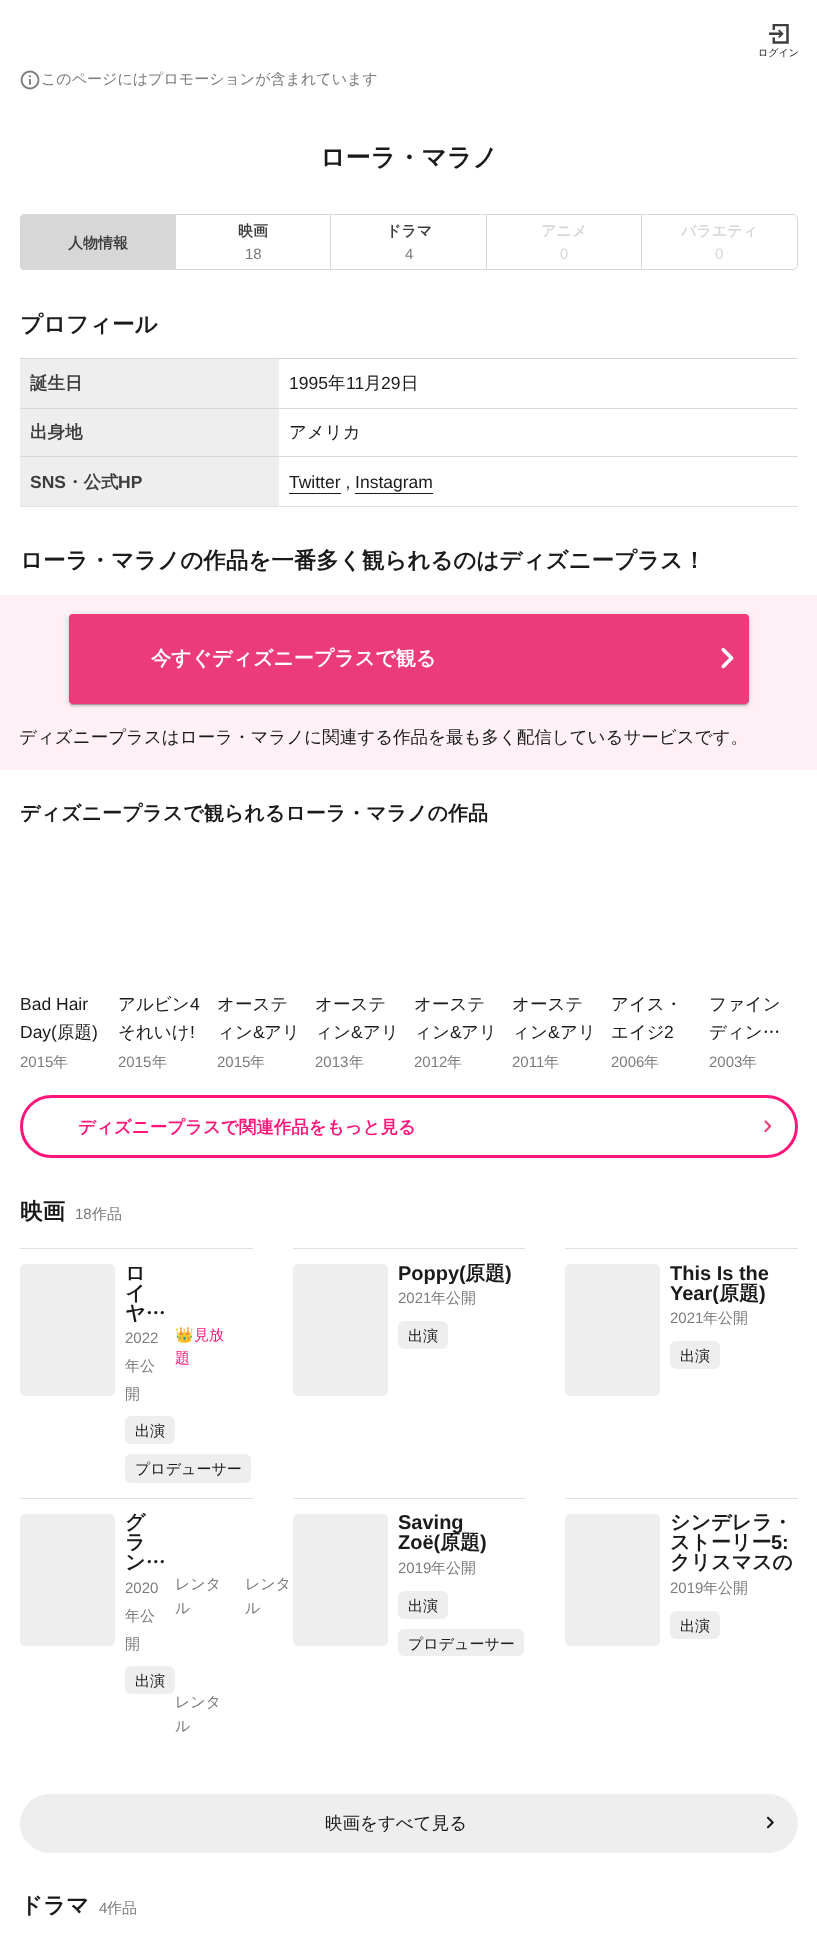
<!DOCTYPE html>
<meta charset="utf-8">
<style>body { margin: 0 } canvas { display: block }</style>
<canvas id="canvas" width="817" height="1933"></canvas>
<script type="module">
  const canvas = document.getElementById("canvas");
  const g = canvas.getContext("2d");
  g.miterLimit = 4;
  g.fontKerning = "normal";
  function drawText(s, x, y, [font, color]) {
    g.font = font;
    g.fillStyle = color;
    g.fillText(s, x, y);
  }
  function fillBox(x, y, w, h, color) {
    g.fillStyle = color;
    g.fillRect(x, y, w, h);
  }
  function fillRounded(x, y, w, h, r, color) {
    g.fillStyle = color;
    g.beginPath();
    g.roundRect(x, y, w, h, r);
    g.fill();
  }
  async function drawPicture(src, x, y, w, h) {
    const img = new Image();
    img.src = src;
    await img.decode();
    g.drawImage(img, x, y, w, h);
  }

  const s1 = ["500 10px WenQuanYi Zen Hei", "#1A1A1A"];
  const s2 = ["500 15px WenQuanYi Zen Hei", "#7A7A7A"];
  const s3 = ["bold 25px WenQuanYi Zen Hei", "#1A1A1A"];
  const s4 = ["bold 15px WenQuanYi Zen Hei", "#3E3E3E"];
  const s5 = ["15px Liberation Sans", "#7A7A7A"];
  const s6 = ["bold 15px WenQuanYi Zen Hei", "#D7D7D7"];
  const s7 = ["15px Liberation Sans", "#D7D7D7"];
  const s8 = ["bold 22.5px WenQuanYi Zen Hei", "#1A1A1A"];
  const s9 = ["bold 17.5px WenQuanYi Zen Hei", "#3E3E3E"];
  const s10 = ["17.5px Liberation Sans", "#1A1A1A"];
  const s11 = ["500 17.5px WenQuanYi Zen Hei", "#1A1A1A"];
  const s12 = ["bold 17.5px Liberation Sans", "#3E3E3E"];
  const s13 = ["bold 20px WenQuanYi Zen Hei", "#FFFFFF"];
  const s14 = ["bold 20px WenQuanYi Zen Hei", "#1A1A1A"];
  const s15 = ["bold 17.5px WenQuanYi Zen Hei", "#FF147A"];
  const s16 = ["500 15px WenQuanYi Zen Hei", "#1A1A1A"];
  const s17 = ["15px Noto Color Emoji", "#FF147A"];
  const s18 = ["500 15px WenQuanYi Zen Hei", "#FF147A"];
  const s19 = ["bold 20px Liberation Sans", "#1A1A1A"];

  fillBox(0, 0, 817, 1933, "#FFFFFF");
  await drawPicture("pic1.png", 769, 24, 20, 20);
  drawText("ログイン", 758, 56, s1);
  await drawPicture("pic2.png", 20, 70, 20, 20);
  drawText("このページにはプロモーションが含まれています", 41, 84, s2);
  drawText("ローラ・マラノ", 320, 166, s3);
  g.fillStyle = "#D7D7D7";
  g.beginPath();
  g.roundRect(20, 214, 156, 56, [5, 0, 0, 5]);
  g.fill();
  g.beginPath();
  g.moveTo(25, 214);
  g.bezierCurveTo(24, 214, 22, 214, 22, 215);
  g.lineTo(22, 216);
  g.lineTo(25, 215);
  g.lineTo(175, 215);
  g.lineTo(176, 214);
  g.closePath();
  g.fill();
  g.beginPath();
  g.moveTo(25, 270);
  g.lineTo(176, 270);
  g.lineTo(175, 269);
  g.lineTo(25, 269);
  g.lineTo(22, 268);
  g.lineTo(21, 269);
  g.bezierCurveTo(22, 270, 24, 270, 25, 270);
  g.closePath();
  g.fill();
  g.beginPath();
  g.moveTo(20, 219);
  g.lineTo(20, 265);
  g.bezierCurveTo(20, 266, 20, 268, 21, 269);
  g.lineTo(22, 268);
  g.lineTo(21, 265);
  g.lineTo(21, 219);
  g.lineTo(22, 216);
  g.lineTo(22, 215);
  g.bezierCurveTo(21, 216, 20, 217, 20, 219);
  g.closePath();
  g.fill();
  drawText("人物情報", 68, 248, s4);
  g.fillStyle = "#D7D7D7";
  g.beginPath();
  g.moveTo(175, 214);
  g.lineTo(331, 214);
  g.lineTo(330, 215);
  g.lineTo(176, 215);
  g.closePath();
  g.fill();
  g.beginPath();
  g.moveTo(331, 270);
  g.lineTo(175, 270);
  g.lineTo(176, 269);
  g.lineTo(330, 269);
  g.closePath();
  g.fill();
  drawText("映画", 238, 236, s4);
  drawText("18", 245, 259, s5);
  g.fillStyle = "#D7D7D7";
  g.beginPath();
  g.moveTo(330, 214);
  g.lineTo(488, 214);
  g.lineTo(486, 215);
  g.lineTo(331, 215);
  g.closePath();
  g.fill();
  g.beginPath();
  g.moveTo(488, 270);
  g.lineTo(330, 270);
  g.lineTo(331, 269);
  g.lineTo(486, 269);
  g.closePath();
  g.fill();
  fillBox(330, 214, 1, 56, "#D7D7D7");
  drawText("ドラマ", 386, 236, s4);
  drawText("4", 405, 259, s5);
  fillBox(487, 214, 1, 56, "#FFFFFF");
  g.fillStyle = "#D7D7D7";
  g.beginPath();
  g.moveTo(486, 214);
  g.lineTo(642, 214);
  g.lineTo(641, 215);
  g.lineTo(488, 215);
  g.closePath();
  g.fill();
  g.beginPath();
  g.moveTo(642, 270);
  g.lineTo(486, 270);
  g.lineTo(488, 269);
  g.lineTo(641, 269);
  g.closePath();
  g.fill();
  fillBox(486, 214, 1, 56, "#D7D7D7");
  drawText("アニメ", 541, 236, s6);
  drawText("0", 560, 259, s7);
  g.fillStyle = "#FFFFFF";
  g.beginPath();
  g.roundRect(641.5, 214.5, 156, 55, [0, 4.5, 4.5, 0]);
  g.fill();
  g.strokeStyle = "#D7D7D7";
  g.stroke();
  drawText("バラエティ", 681, 236, s6);
  drawText("0", 715, 259, s7);
  drawText("プロフィール", 20, 332, s8);
  fillBox(20, 359, 259, 49, "#EEEEEE");
  fillBox(20, 358, 778, 1, "#D7D7D7");
  drawText("誕生日", 30, 389, s9);
  drawText("1995", 289, 389, s10);
  drawText("年", 328, 389, s11);
  drawText("11", 346, 389, s10);
  drawText("月", 364, 389, s11);
  drawText("29", 381, 389, s10);
  drawText("日", 401, 389, s11);
  fillBox(20, 409, 259, 47, "#EEEEEE");
  fillBox(20, 408, 778, 1, "#D7D7D7");
  drawText("出身地", 30, 438, s9);
  drawText("アメリカ", 289, 438, s11);
  fillBox(20, 457, 259, 49, "#EEEEEE");
  fillBox(20, 456, 778, 1, "#D7D7D7");
  drawText("SNS", 30, 488, s12);
  drawText("・公式", 66, 488, s9);
  drawText("HP", 118, 488, s12);
  drawText("Twitter , Instagram", 289, 488, s10);
  fillBox(289, 493, 52, 1, "#1A1A1A");
  fillBox(355, 493, 78, 1, "#1A1A1A");
  fillBox(20, 506, 778, 1, "#E0E0E0");
  drawText("ローラ・マラノの作品を一番多く観られるのはディズニープラス！", 20, 568, s8);
  fillBox(0, 595, 817, 175, "#FFF1F6");
  g.fillStyle = "rgba(0, 0, 0, 0.12)";
  g.filter = "blur(3px)";
  g.beginPath();
  g.roundRect(69, 615, 680, 90, 4);
  g.fill();
  g.filter = "none";
  g.fillStyle = "rgba(0, 0, 0, 0.14)";
  g.filter = "blur(1px)";
  g.beginPath();
  g.roundRect(69, 616, 680, 90, 4);
  g.fill();
  g.filter = "none";
  g.fillStyle = "rgba(0, 0, 0, 0.2)";
  g.filter = "blur(0.5px)";
  g.beginPath();
  g.roundRect(71, 620, 675, 85, 1);
  g.fill();
  g.filter = "none";
  fillRounded(69, 614, 680, 90, 4, "#EB3B7A");
  drawText("今すぐディズニープラスで観る", 151, 665, s13);
  await drawPicture("pic3.png", 721, 648, 13, 21);
  drawText("ディズニープラスはローラ・マラノに関連する作品を最も多く配信しているサービスです。", 19, 743, s11);
  drawText("ディズニープラスで観られるローラ・マラノの作品", 20, 820, s14);
  drawText("Bad Hair", 20, 1010, s10);
  drawText("Day(", 20, 1038, s10);
  drawText("原題", 57, 1038, s11);
  drawText(")", 92, 1038, s10);
  drawText("2015", 20, 1067, s5);
  drawText("年", 53, 1067, s2);
  drawText("アルビン", 118, 1010, s11);
  drawText("4", 190, 1010, s10);
  drawText("それいけ", 118, 1038, s11);
  drawText("!", 190, 1038, s10);
  drawText("2015", 118, 1067, s5);
  drawText("年", 152, 1067, s2);
  drawText("オーステ", 217, 1010, s11);
  drawText("ィン", 217, 1038, s11);
  drawText("&", 253, 1038, s10);
  drawText("アリ", 264, 1038, s11);
  drawText("2015", 217, 1067, s5);
  drawText("年", 250, 1067, s2);
  drawText("オーステ", 315, 1010, s11);
  drawText("ィン", 315, 1038, s11);
  drawText("&", 351, 1038, s10);
  drawText("アリ", 363, 1038, s11);
  drawText("2013", 315, 1067, s5);
  drawText("年", 349, 1067, s2);
  drawText("オーステ", 414, 1010, s11);
  drawText("ィン", 414, 1038, s11);
  drawText("&", 450, 1038, s10);
  drawText("アリ", 461, 1038, s11);
  drawText("2012", 414, 1067, s5);
  drawText("年", 447, 1067, s2);
  drawText("オーステ", 512, 1010, s11);
  drawText("ィン", 512, 1038, s11);
  drawText("&", 548, 1038, s10);
  drawText("アリ", 560, 1038, s11);
  drawText("2011", 512, 1067, s5);
  drawText("年", 544, 1067, s2);
  drawText("アイス・", 611, 1010, s11);
  drawText("エイジ", 611, 1038, s11);
  drawText("2", 664, 1038, s10);
  drawText("2006", 611, 1067, s5);
  drawText("年", 644, 1067, s2);
  drawText("ファイン", 709, 1010, s11);
  drawText("ディン…", 709, 1038, s11);
  drawText("2003", 709, 1067, s5);
  drawText("年", 742, 1067, s2);
  g.beginPath();
  g.roundRect(21.5, 1096.5, 775, 60, 30);
  g.strokeStyle = "#FF147A";
  g.lineWidth = 3;
  g.stroke();
  drawText("ディズニープラスで関連作品をもっと見る", 78, 1133, s15);
  await drawPicture("pic4.png", 764, 1120, 8, 13);
  drawText("映画", 20, 1219, s8);
  drawText("18", 75, 1219, s5);
  drawText("作品", 92, 1219, s2);
  fillBox(20, 1248, 233, 1, "#E0E0E0");
  fillRounded(20, 1264, 95, 132, 5, "#EEEEEE");
  drawText("ロ", 125, 1280, s14);
  drawText("イ", 125, 1300, s14);
  drawText("ヤ…", 125, 1320, s14);
  drawText("2022", 125, 1343, s5);
  drawText("年公", 125, 1371, s2);
  drawText("開", 125, 1399, s2);
  fillRounded(125, 1416, 50, 28, 6, "#EEEEEE");
  drawText("出演", 135, 1436, s16);
  fillRounded(125, 1454, 126, 29, 6, "#EEEEEE");
  drawText("プロデューサー", 135, 1474, s16);
  drawText("👑", 175, 1340, s17);
  drawText("見放", 194, 1340, s18);
  drawText("題", 175, 1363, s18);
  fillBox(293, 1248, 232, 1, "#E0E0E0");
  fillRounded(293, 1264, 95, 132, 5, "#EEEEEE");
  g.save();
  g.beginPath();
  g.rect(398, 1264, 127, 20);
  g.clip();
  drawText("Poppy(", 398, 1280, s19);
  g.restore();
  drawText("原題", 465, 1280, s14);
  g.save();
  g.beginPath();
  g.rect(398, 1264, 127, 20);
  g.clip();
  drawText(")", 505, 1280, s19);
  g.restore();
  drawText("2021", 398, 1303, s5);
  drawText("年公開", 431, 1303, s2);
  fillRounded(398, 1321, 50, 28, 6, "#EEEEEE");
  drawText("出演", 408, 1341, s16);
  fillBox(565, 1248, 233, 1, "#E0E0E0");
  fillRounded(565, 1264, 95, 132, 5, "#EEEEEE");
  drawText("This Is the", 670, 1280, s19);
  g.save();
  g.beginPath();
  g.rect(670, 1264, 128, 40);
  g.clip();
  drawText("Year(", 670, 1300, s19);
  g.restore();
  drawText("原題", 719, 1300, s14);
  g.save();
  g.beginPath();
  g.rect(670, 1264, 128, 40);
  g.clip();
  drawText(")", 759, 1300, s19);
  g.restore();
  drawText("2021", 670, 1323, s5);
  drawText("年公開", 703, 1323, s2);
  fillRounded(670, 1341, 50, 28, 6, "#EEEEEE");
  drawText("出演", 680, 1361, s16);
  fillBox(20, 1498, 233, 1, "#E0E0E0");
  fillRounded(20, 1514, 95, 132, 5, "#EEEEEE");
  drawText("グ", 125, 1529, s14);
  drawText("ラ", 125, 1549, s14);
  drawText("ン…", 125, 1569, s14);
  drawText("2020", 125, 1593, s5);
  drawText("年公", 125, 1621, s2);
  drawText("開", 125, 1649, s2);
  fillRounded(125, 1666, 50, 28, 6, "#EEEEEE");
  drawText("出演", 135, 1686, s16);
  drawText("レンタ", 175, 1589, s2);
  drawText("ル", 175, 1613, s2);
  drawText("レンタ", 245, 1589, s2);
  drawText("ル", 245, 1613, s2);
  drawText("レンタ", 175, 1707, s2);
  drawText("ル", 175, 1731, s2);
  fillBox(293, 1498, 232, 1, "#E0E0E0");
  fillRounded(293, 1514, 95, 132, 5, "#EEEEEE");
  drawText("Saving", 398, 1529, s19);
  drawText("Zoë(", 398, 1549, s19);
  drawText("原題", 440, 1549, s14);
  drawText(")", 480, 1549, s19);
  drawText("2019", 398, 1573, s5);
  drawText("年公開", 431, 1573, s2);
  fillRounded(398, 1591, 50, 28, 6, "#EEEEEE");
  drawText("出演", 408, 1611, s16);
  fillRounded(398, 1629, 126, 27, 6, "#EEEEEE");
  drawText("プロデューサー", 408, 1649, s16);
  fillBox(565, 1498, 233, 1, "#E0E0E0");
  fillRounded(565, 1514, 95, 132, 5, "#EEEEEE");
  drawText("シンデレラ・", 670, 1529, s14);
  drawText("ストーリー", 670, 1549, s14);
  drawText("5:", 771, 1549, s19);
  drawText("クリスマスの", 670, 1569, s14);
  drawText("2019", 670, 1593, s5);
  drawText("年公開", 703, 1593, s2);
  fillRounded(670, 1611, 50, 28, 6, "#EEEEEE");
  drawText("出演", 680, 1631, s16);
  fillRounded(20, 1794, 778, 59, 29.5, "#EEEEEE");
  drawText("映画をすべて見る", 325, 1829, s11);
  await drawPicture("pic5.png", 766, 1816, 8, 13);
  drawText("ドラマ", 20, 1913, s8);
  drawText("4", 99, 1913, s5);
  drawText("作品", 107, 1913, s2);
</script>
